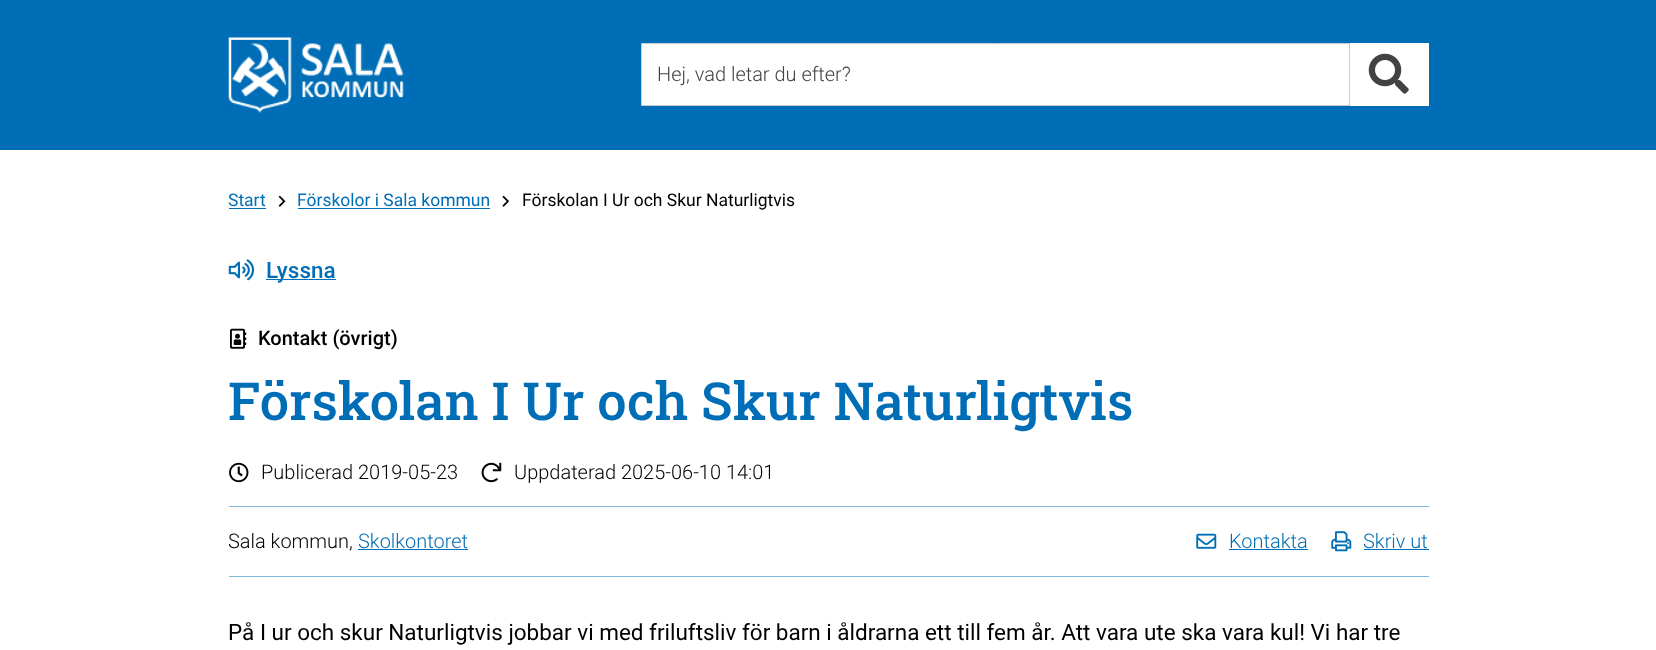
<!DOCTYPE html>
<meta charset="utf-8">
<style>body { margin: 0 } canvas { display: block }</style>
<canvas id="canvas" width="1656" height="650"></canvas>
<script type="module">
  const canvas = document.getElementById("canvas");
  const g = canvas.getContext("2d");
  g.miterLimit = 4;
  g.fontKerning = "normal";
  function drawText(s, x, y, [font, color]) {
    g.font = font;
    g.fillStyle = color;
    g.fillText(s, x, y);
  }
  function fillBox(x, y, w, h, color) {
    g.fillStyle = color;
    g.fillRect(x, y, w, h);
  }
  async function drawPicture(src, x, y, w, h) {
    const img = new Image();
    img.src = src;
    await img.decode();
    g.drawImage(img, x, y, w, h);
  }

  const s1 = ["300 20px Roboto", "#424242"];
  const s2 = ["17.5px Roboto", "#006EB7"];
  const s3 = ["17.5px Roboto", "#000000"];
  const s4 = ["500 22.5px Roboto", "#006EB7"];
  const s5 = ["500 20px Roboto", "#000000"];
  const s6 = ["500 52.5px Roboto Slab", "#006EB7"];
  const s7 = ["300 20px Roboto", "#000000"];
  const s8 = ["300 20px Roboto", "#006EB7"];
  const s9 = ["22.5px Roboto", "#000000"];

  fillBox(0, 0, 1656, 650, "#FFFFFF");
  fillBox(0, 0, 1656, 150, "#006EB7");
  await drawPicture("pic1.png", 228, 37, 176, 76);
  g.fillStyle = "#FFFFFF";
  g.beginPath();
  g.rect(641.5, 43.5, 708, 62);
  g.fill();
  g.strokeStyle = "#CCCCCC";
  g.stroke();
  drawText("Hej, vad letar du efter?", 657, 81, s1);
  fillBox(1350, 43, 79, 63, "#FFFFFF");
  await drawPicture("pic2.png", 1368, 53, 41, 41);
  drawText("Start", 228, 206, s2);
  fillBox(229, 208, 37, 1, "#006EB7");
  await drawPicture("pic3.png", 278, 195, 8, 12);
  drawText("Förskolor i Sala kommun", 297, 206, s2);
  fillBox(298, 208, 192, 1, "#006EB7");
  await drawPicture("pic4.png", 502, 195, 7, 12);
  drawText("Förskolan I Ur och Skur Naturligtvis", 522, 206, s3);
  await drawPicture("pic5.png", 228, 259, 27, 22);
  fillBox(266, 279, 70, 1, "#006EB7");
  drawText("Lyssna", 266, 278, s4);
  await drawPicture("pic6.png", 230, 328, 17, 21);
  drawText("Kontakt (övrigt)", 258, 345, s5);
  drawText("Förskolan I Ur och Skur Naturligtvis", 228, 420, s6);
  await drawPicture("pic7.png", 229, 462, 20, 21);
  drawText("Publicerad 2019-05-23", 261, 479, s7);
  await drawPicture("pic8.png", 481, 462, 21, 21);
  drawText("Uppdaterad 2025-06-10 14:01", 514, 479, s7);
  fillBox(229, 506, 1200, 1, "#80B7DB");
  fillBox(229, 576, 1200, 1, "#80B7DB");
  drawText("Sala kommun,", 228, 548, s7);
  drawText("Skolkontoret", 358, 548, s8);
  fillBox(358, 549, 110, 1, "#006EB7");
  await drawPicture("pic9.png", 1196, 533, 21, 16);
  drawText("Kontakta", 1229, 548, s8);
  fillBox(1229, 549, 79, 1, "#006EB7");
  await drawPicture("pic10.png", 1331, 531, 21, 21);
  drawText("Skriv ut", 1363, 548, s8);
  fillBox(1364, 549, 65, 1, "#006EB7");
  drawText("På I ur och skur Naturligtvis jobbar vi med friluftsliv för barn i åldrarna ett till fem år. Att vara ute ska vara kul! Vi har tre", 228, 640, s9);
</script>
